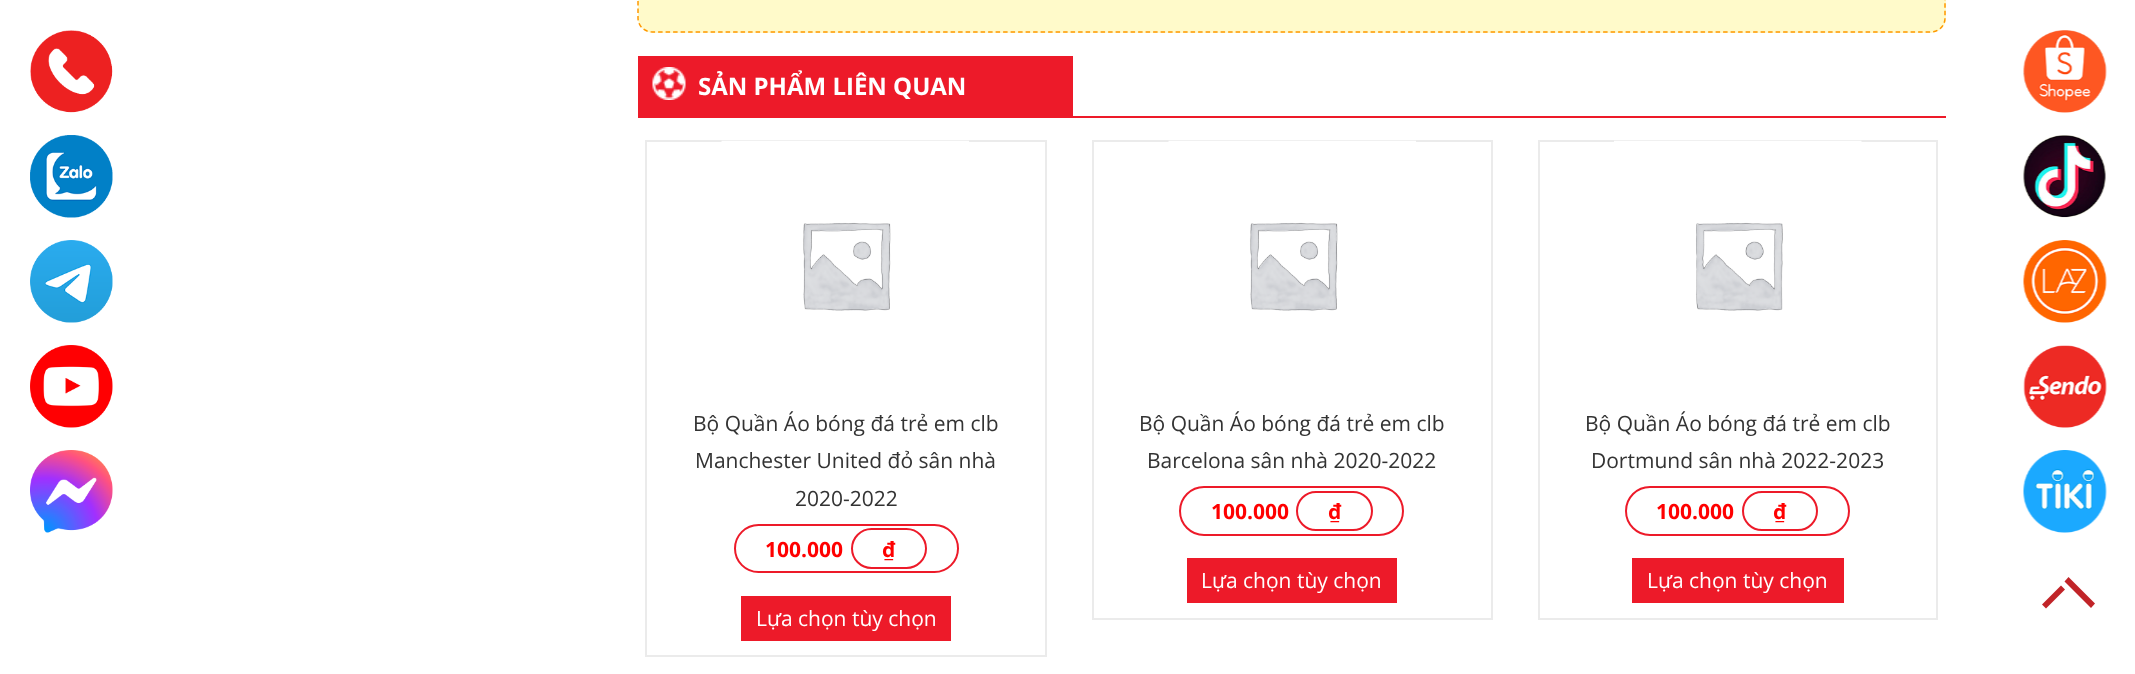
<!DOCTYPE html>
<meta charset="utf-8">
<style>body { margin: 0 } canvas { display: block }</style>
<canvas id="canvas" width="2135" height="674"></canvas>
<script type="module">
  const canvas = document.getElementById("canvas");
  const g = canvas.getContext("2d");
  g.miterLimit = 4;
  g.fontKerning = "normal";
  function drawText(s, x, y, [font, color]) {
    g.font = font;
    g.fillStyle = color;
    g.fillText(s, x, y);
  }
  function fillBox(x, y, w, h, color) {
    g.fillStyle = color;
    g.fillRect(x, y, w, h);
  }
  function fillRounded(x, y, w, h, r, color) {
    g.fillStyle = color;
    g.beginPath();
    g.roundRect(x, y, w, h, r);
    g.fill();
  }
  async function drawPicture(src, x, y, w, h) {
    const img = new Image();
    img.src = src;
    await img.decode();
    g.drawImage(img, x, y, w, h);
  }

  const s1 = ["bold 24px Open Sans", "#FFFFFF"];
  const s2 = ["21px Open Sans", "#333333"];
  const s3 = ["bold 21px Open Sans", "#FF0000"];
  const s4 = ["21px Open Sans", "#FFFFFF"];

  fillBox(0, 0, 2135, 674, "#FFFFFF");
  await drawPicture("pic1.png", 30, 30, 83, 83);
  await drawPicture("pic2.png", 30, 135, 83, 83);
  await drawPicture("pic3.png", 30, 240, 83, 83);
  await drawPicture("pic4.png", 30, 345, 83, 83);
  await drawPicture("pic5.png", 30, 450, 83, 83);
  fillRounded(638, -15, 1308, 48, 15, "#FFFACA");
  g.beginPath();
  g.moveTo(652.5, -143);
  g.lineTo(1930.5, -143);
  g.bezierCurveTo(1938.5, -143, 1945, -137, 1945, -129);
  g.lineTo(1945, 18);
  g.bezierCurveTo(1945, 26, 1938.5, 32, 1930.5, 32);
  g.lineTo(652.5, 32);
  g.bezierCurveTo(644.5, 32, 638, 26, 638, 18);
  g.lineTo(638, -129);
  g.bezierCurveTo(638, -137, 644.5, -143, 652.5, -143);
  g.closePath();
  g.strokeStyle = "#FF9800";
  g.lineWidth = 1.5;
  g.setLineDash([4.5, 3]);
  g.stroke();
  fillBox(638, 116, 1308, 2, "#ED1A29");
  fillBox(638, 56, 435, 60, "#ED1A29");
  await drawPicture("pic6.png", 652, 67, 34, 33);
  drawText("SẢN PHẨM LIÊN QUAN", 698, 95, s1);
  g.strokeStyle = "#EBEBEB";
  g.lineWidth = 2;
  g.setLineDash([]);
  g.strokeRect(646, 141, 400, 515);
  await drawPicture("pic7.png", 721, 140, 248, 171);
  drawText("Bộ Quần Áo bóng đá trẻ em clb", 693, 431, s2);
  drawText("Manchester United đỏ sân nhà", 695, 468, s2);
  drawText("2020-2022", 795, 506, s2);
  g.beginPath();
  g.roundRect(735, 525, 223, 47, 23.5);
  g.strokeStyle = "#ED1A29";
  g.stroke();
  drawText("100.000", 765, 557, s3);
  g.beginPath();
  g.roundRect(852, 529, 74, 39, 19.5);
  g.stroke();
  drawText("₫", 882, 557, s3);
  fillBox(741, 596, 210, 45, "#ED1A29");
  drawText("Lựa chọn tùy chọn", 756, 626, s4);
  g.strokeStyle = "#EBEBEB";
  g.strokeRect(1093, 141, 399, 478);
  await drawPicture("pic7.png", 1168, 140, 248, 171);
  drawText("Bộ Quần Áo bóng đá trẻ em clb", 1139, 431, s2);
  drawText("Barcelona sân nhà 2020-2022", 1147, 468, s2);
  g.beginPath();
  g.roundRect(1180, 487, 223, 48, 24);
  g.strokeStyle = "#ED1A29";
  g.stroke();
  drawText("100.000", 1211, 519, s3);
  g.beginPath();
  g.roundRect(1297, 492, 75, 38, 19);
  g.stroke();
  drawText("₫", 1328, 519, s3);
  fillBox(1187, 558, 210, 45, "#ED1A29");
  drawText("Lựa chọn tùy chọn", 1201, 588, s4);
  g.strokeStyle = "#EBEBEB";
  g.strokeRect(1539, 141, 398, 478);
  await drawPicture("pic8.png", 1614, 140, 248, 171);
  drawText("Bộ Quần Áo bóng đá trẻ em clb", 1585, 431, s2);
  drawText("Dortmund sân nhà 2022-2023", 1591, 468, s2);
  g.beginPath();
  g.roundRect(1626, 487, 223, 48, 24);
  g.strokeStyle = "#ED1A29";
  g.stroke();
  drawText("100.000", 1656, 519, s3);
  g.beginPath();
  g.roundRect(1743, 492, 74, 38, 19);
  g.stroke();
  drawText("₫", 1773, 519, s3);
  fillBox(1632, 558, 212, 45, "#ED1A29");
  drawText("Lựa chọn tùy chọn", 1647, 588, s4);
  await drawPicture("pic9.png", 2023, 30, 84, 83);
  await drawPicture("pic10.png", 2023, 135, 83, 83);
  await drawPicture("pic11.png", 2023, 240, 84, 83);
  await drawPicture("pic12.png", 2023, 345, 84, 83);
  await drawPicture("pic13.png", 2023, 450, 84, 83);
  g.fillStyle = "#C12428";
  g.beginPath();
  g.moveTo(2042, 604.5);
  g.lineTo(2061, 585.5);
  g.lineTo(2065, 589.5);
  g.lineTo(2046, 608.5);
  g.closePath();
  g.fill();
  g.beginPath();
  g.moveTo(2068.5, 577);
  g.lineTo(2095, 603.5);
  g.lineTo(2091, 608);
  g.lineTo(2064.5, 581.5);
  g.closePath();
  g.fill();
</script>
